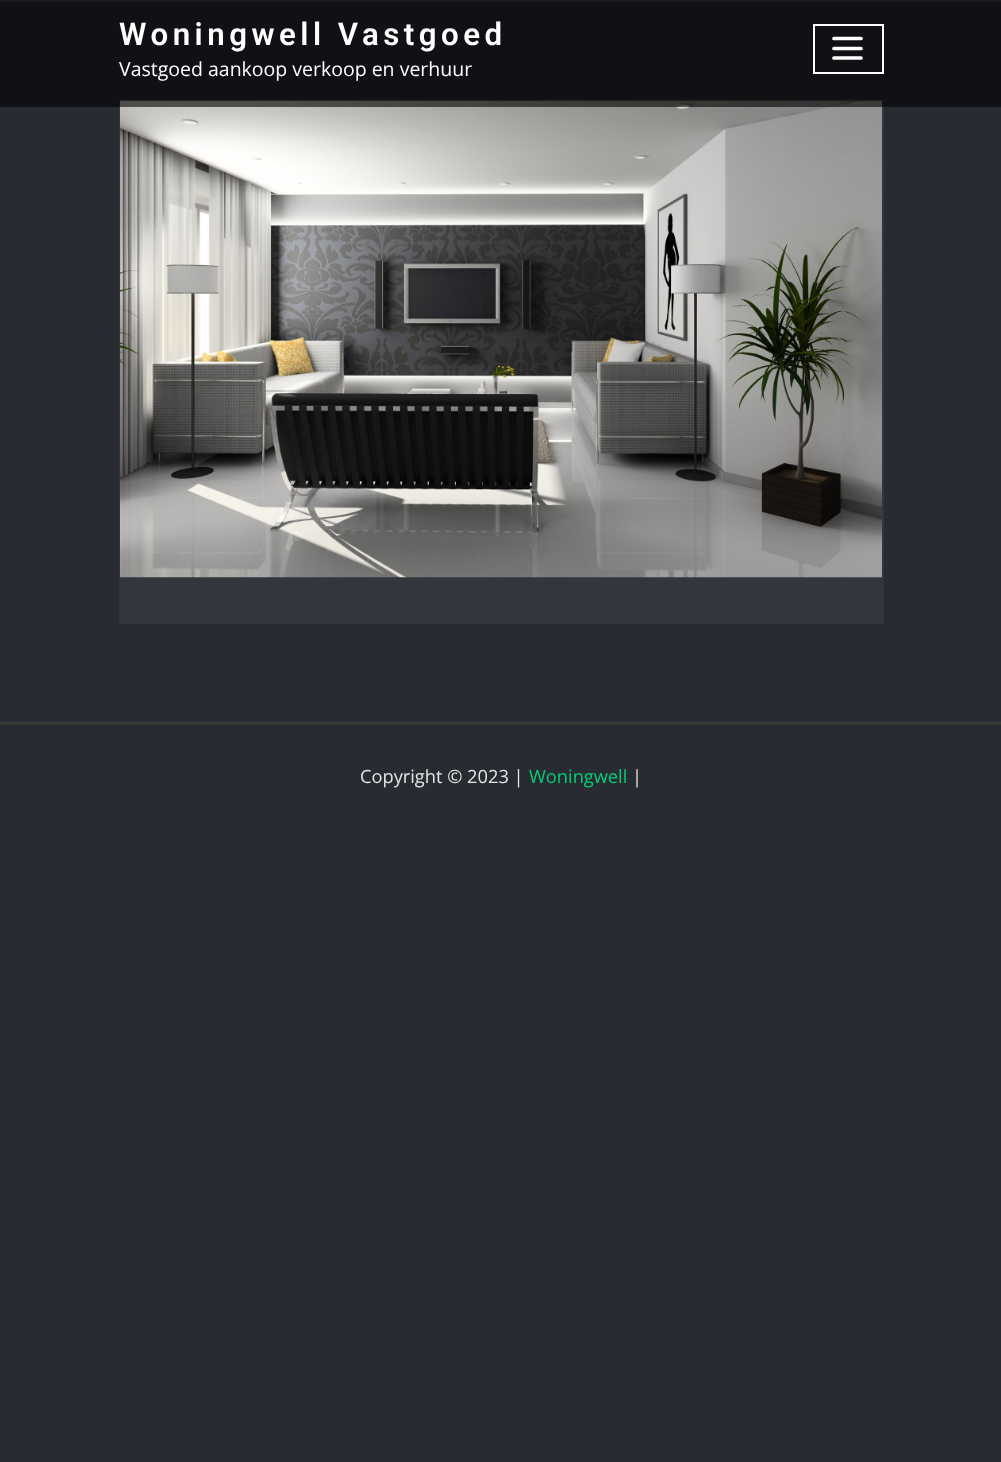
<!DOCTYPE html>
<meta charset="utf-8">
<style>body { margin: 0 } canvas { display: block }</style>
<canvas id="canvas" width="1001" height="1462"></canvas>
<script type="module">
  const canvas = document.getElementById("canvas");
  const g = canvas.getContext("2d");
  g.miterLimit = 4;
  g.fontKerning = "normal";
  function drawText(s, x, y, [font, color]) {
    g.font = font;
    g.fillStyle = color;
    g.fillText(s, x, y);
  }
  function fillBox(x, y, w, h, color) {
    g.fillStyle = color;
    g.fillRect(x, y, w, h);
  }
  async function drawPicture(src, x, y, w, h) {
    const img = new Image();
    img.src = src;
    await img.decode();
    g.drawImage(img, x, y, w, h);
  }

  const s1 = ["600 31.25px Roboto", "#FFFFFF"];
  const s2 = ["19.5px Open Sans", "#FFFFFF"];
  const s3 = ["18.25px Open Sans", "#E5E5E5"];
  const s4 = ["18.25px Open Sans", "#04CE78"];

  fillBox(0, 0, 1001, 1462, "#292B32");
  fillBox(0, 0, 1001, 2, "#424242");
  fillBox(0, 722, 1001, 1, "#424242");
  fillBox(119, 99, 765, 525, "#34363E");
  await drawPicture("pic1.png", 120, 100, 762, 478);
  fillBox(0, 0, 1001, 107, "rgba(0, 0, 0, 0.6)");
  g.letterSpacing = "4.5px";
  drawText("Woningwell Vastgoed", 119, 45, s1);
  g.letterSpacing = "0px";
  drawText("Vastgoed aankoop verkoop en verhuur", 119, 76, s2);
  g.strokeStyle = "#FFFFFF";
  g.lineWidth = 2;
  g.strokeRect(814, 25, 69, 48);
  g.beginPath();
  g.moveTo(834, 38.5);
  g.lineTo(861, 38.5);
  g.moveTo(834, 48.5);
  g.lineTo(861, 48.5);
  g.moveTo(834, 58);
  g.lineTo(861, 58);
  g.lineWidth = 3.7;
  g.lineCap = "round";
  g.stroke();
  fillBox(0, 723, 1001, 2, "#363535");
  drawText("Copyright © 2023 |", 360, 783, s3);
  drawText("Woningwell", 529, 783, s4);
  drawText("|", 632, 783, s3);
</script>
